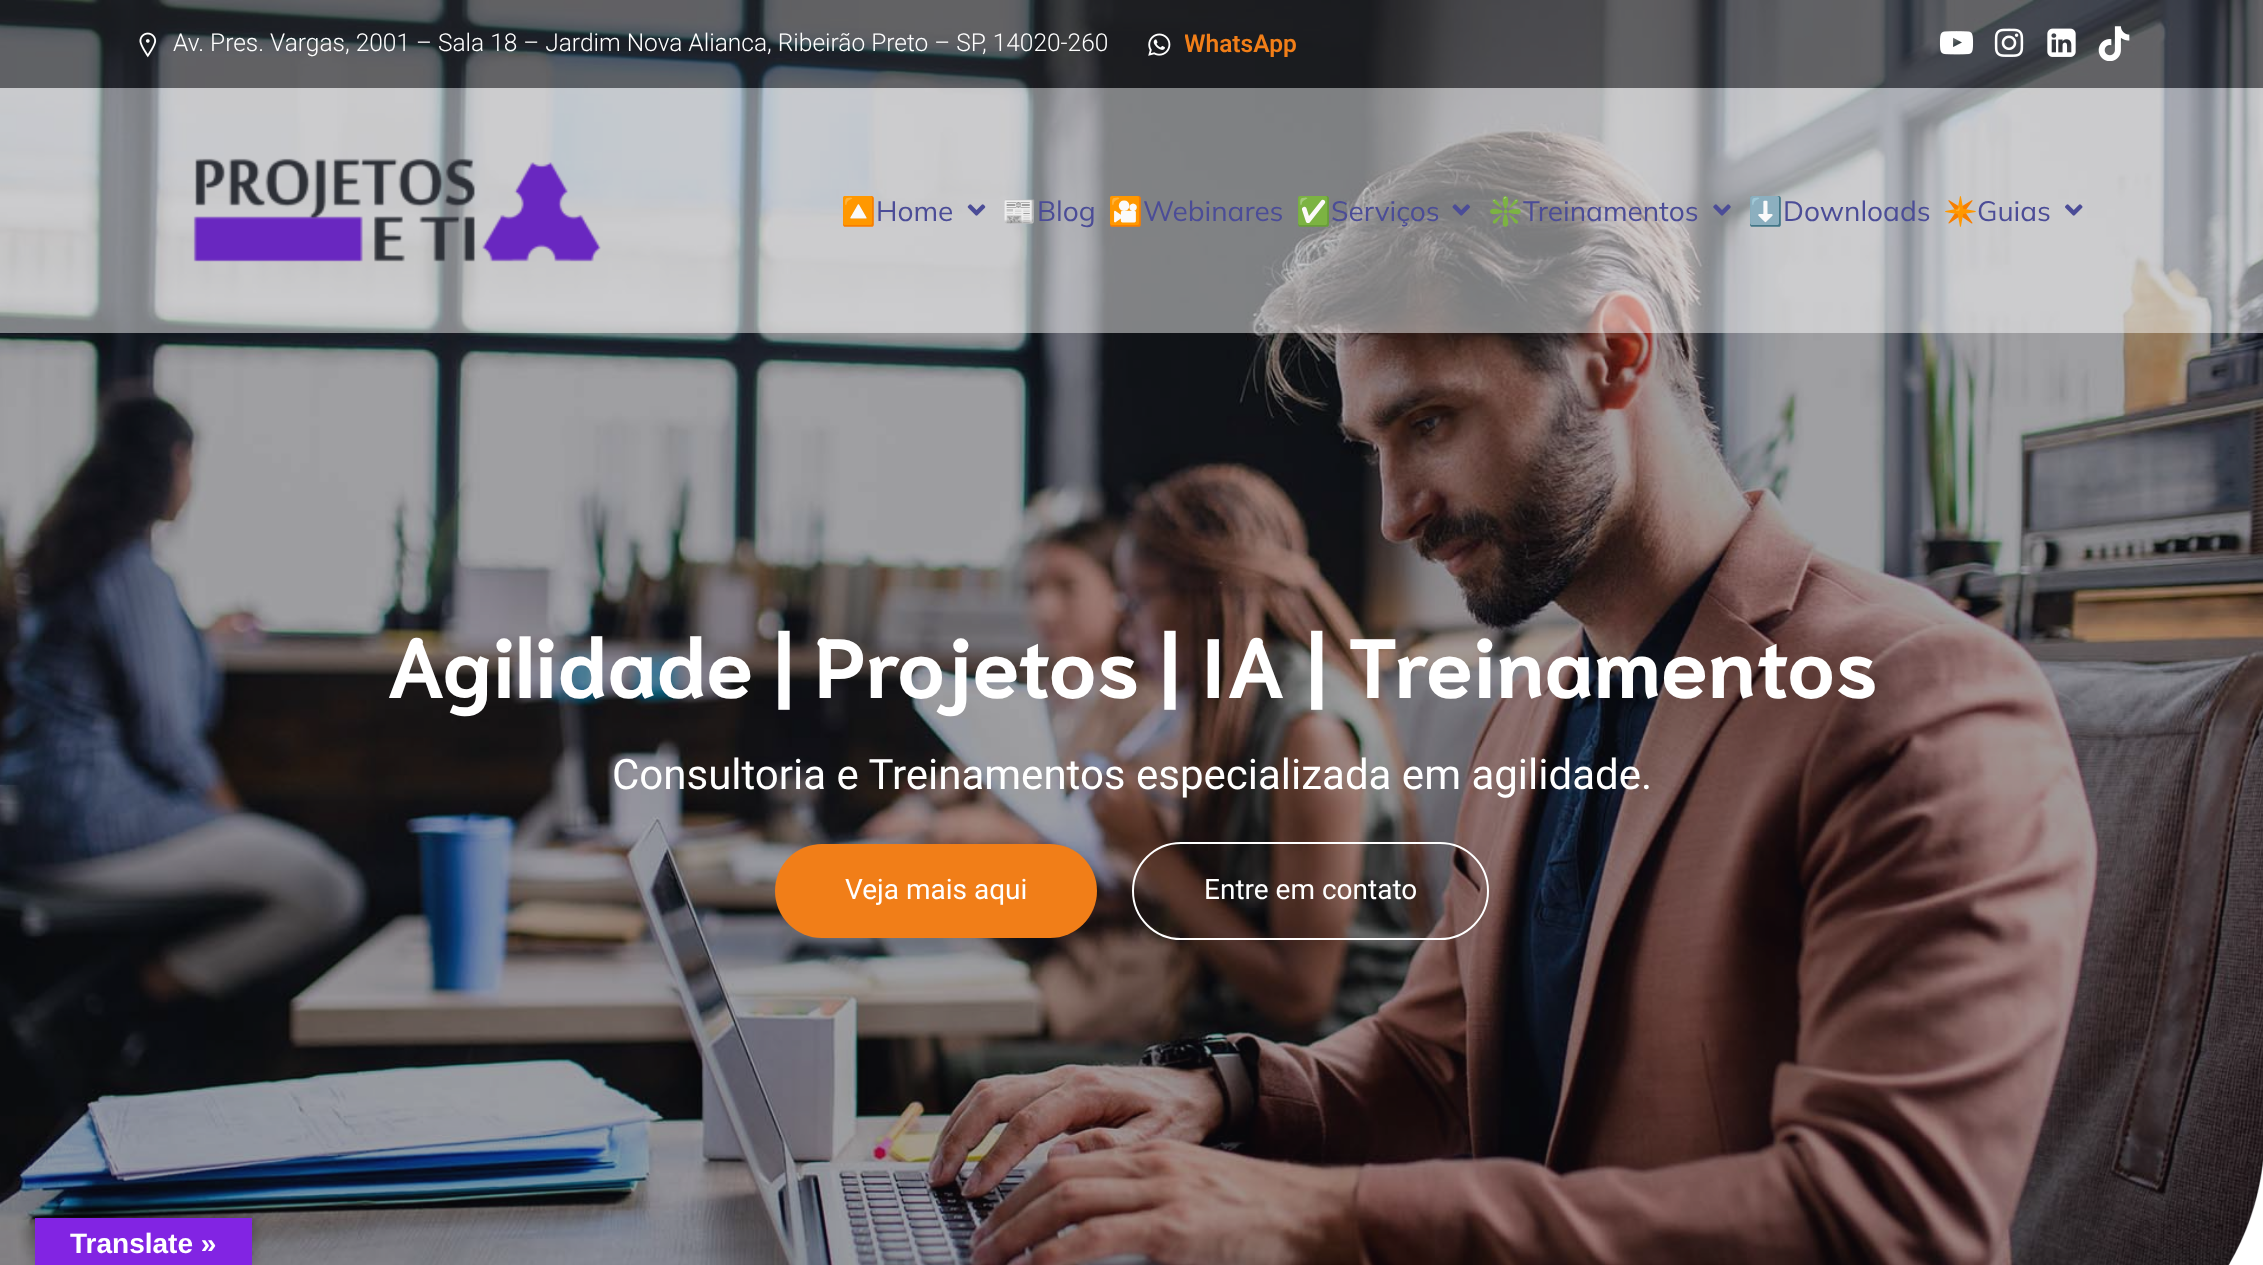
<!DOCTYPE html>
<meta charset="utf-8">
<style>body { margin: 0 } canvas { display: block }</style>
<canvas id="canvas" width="2263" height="1265"></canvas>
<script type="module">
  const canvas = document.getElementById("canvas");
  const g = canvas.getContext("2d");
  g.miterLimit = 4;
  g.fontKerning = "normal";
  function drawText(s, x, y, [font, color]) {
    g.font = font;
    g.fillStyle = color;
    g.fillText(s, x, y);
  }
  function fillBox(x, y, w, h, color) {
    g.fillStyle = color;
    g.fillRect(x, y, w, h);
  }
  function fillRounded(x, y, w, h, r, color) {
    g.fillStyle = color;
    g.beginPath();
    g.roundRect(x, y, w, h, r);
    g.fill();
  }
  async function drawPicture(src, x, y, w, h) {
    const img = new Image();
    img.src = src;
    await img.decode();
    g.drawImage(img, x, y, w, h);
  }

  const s1 = ["300 24.5px Roboto", "#FFFFFF"];
  const s2 = ["600 24.5px Roboto", "#F17E18"];
  const s3 = ["28px Noto Color Emoji", "#4B4C97"];
  const s4 = ["28px Mulish", "#4B4C97"];
  const s5 = ["bold 84px Niramit", "#FFFFFF"];
  const s6 = ["42px Roboto", "#FFFFFF"];
  const s7 = ["28px Roboto", "#FFFFFF"];
  const s8 = ["bold 28px Liberation Sans", "#FFFFFF"];

  fillBox(0, 0, 2263, 1265, "#FFFFFF");
  await drawPicture("pic12.png", 0, 0, 2263, 1265);
  g.fillStyle = "rgba(17, 18, 26, 0.4)";
  g.beginPath();
  g.moveTo(0, 0);
  g.lineTo(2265, 0);
  g.lineTo(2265, 1132);
  g.bezierCurveTo(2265, 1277.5, 2147.5, 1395, 2002, 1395);
  g.lineTo(0, 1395);
  g.closePath();
  g.fill();
  fillBox(0, 0, 2263, 88, "rgba(39, 40, 42, 0.5)");
  await drawPicture("pic1.png", 139, 32, 18, 26);
  drawText("Av. Pres. Vargas, 2001 – Sala 18 – Jardim Nova Alianca, Ribeirão Preto – SP, 14020-260", 173, 51, s1);
  await drawPicture("pic2.png", 1148, 33, 23, 23);
  g.save();
  g.beginPath();
  g.rect(1185, 26, 112, 37);
  g.clip();
  drawText("WhatsApp", 1184, 52, s2);
  g.restore();
  await drawPicture("pic3.png", 1939, 31, 35, 24);
  await drawPicture("pic4.png", 1994, 28, 30, 29);
  await drawPicture("pic5.png", 2047, 28, 29, 29);
  await drawPicture("pic6.png", 2098, 26, 32, 35);
  fillBox(0, 88, 2263, 245, "rgba(255, 255, 255, 0.47)");
  await drawPicture("pic7.png", 193, 158, 408, 104);
  drawText("🔼", 841, 221, s3);
  drawText("Home", 876, 221, s4);
  await drawPicture("pic8.png", 967, 204, 19, 12);
  drawText("📰", 1002, 221, s3);
  drawText("Blog", 1037, 221, s4);
  drawText("🎦", 1108, 221, s3);
  drawText("Webinares", 1143, 221, s4);
  drawText("✅", 1296, 221, s3);
  drawText("Serviços", 1331, 221, s4);
  await drawPicture("pic9.png", 1452, 204, 18, 12);
  drawText("❇️", 1488, 221, s3);
  drawText("Treinamentos", 1523, 221, s4);
  await drawPicture("pic10.png", 1713, 204, 18, 12);
  drawText("⬇️", 1748, 221, s3);
  drawText("Downloads", 1783, 221, s4);
  drawText("✴️", 1943, 221, s3);
  drawText("Guias", 1977, 221, s4);
  await drawPicture("pic11.png", 2065, 204, 18, 12);
  drawText("Agilidade | Projetos | IA | Treinamentos", 386, 698, s5);
  drawText("Consultoria e Treinamentos especializada em agilidade.", 612, 789, s6);
  fillRounded(775, 844, 322, 94, 47, "#F17E18");
  drawText("Veja mais aqui", 845, 899, s7);
  g.beginPath();
  g.roundRect(1133, 843, 355, 96, 48);
  g.strokeStyle = "#FFFFFF";
  g.lineWidth = 2;
  g.stroke();
  drawText("Entre em contato", 1204, 899, s7);
  g.fillStyle = "rgba(0, 0, 0, 0.3)";
  g.filter = "blur(8px)";
  g.beginPath();
  g.rect(35, 1218, 217, 47);
  g.fill();
  g.filter = "none";
  fillBox(35, 1218, 217, 47, "#8224E3");
  drawText("Translate »", 70, 1253, s8);
</script>
